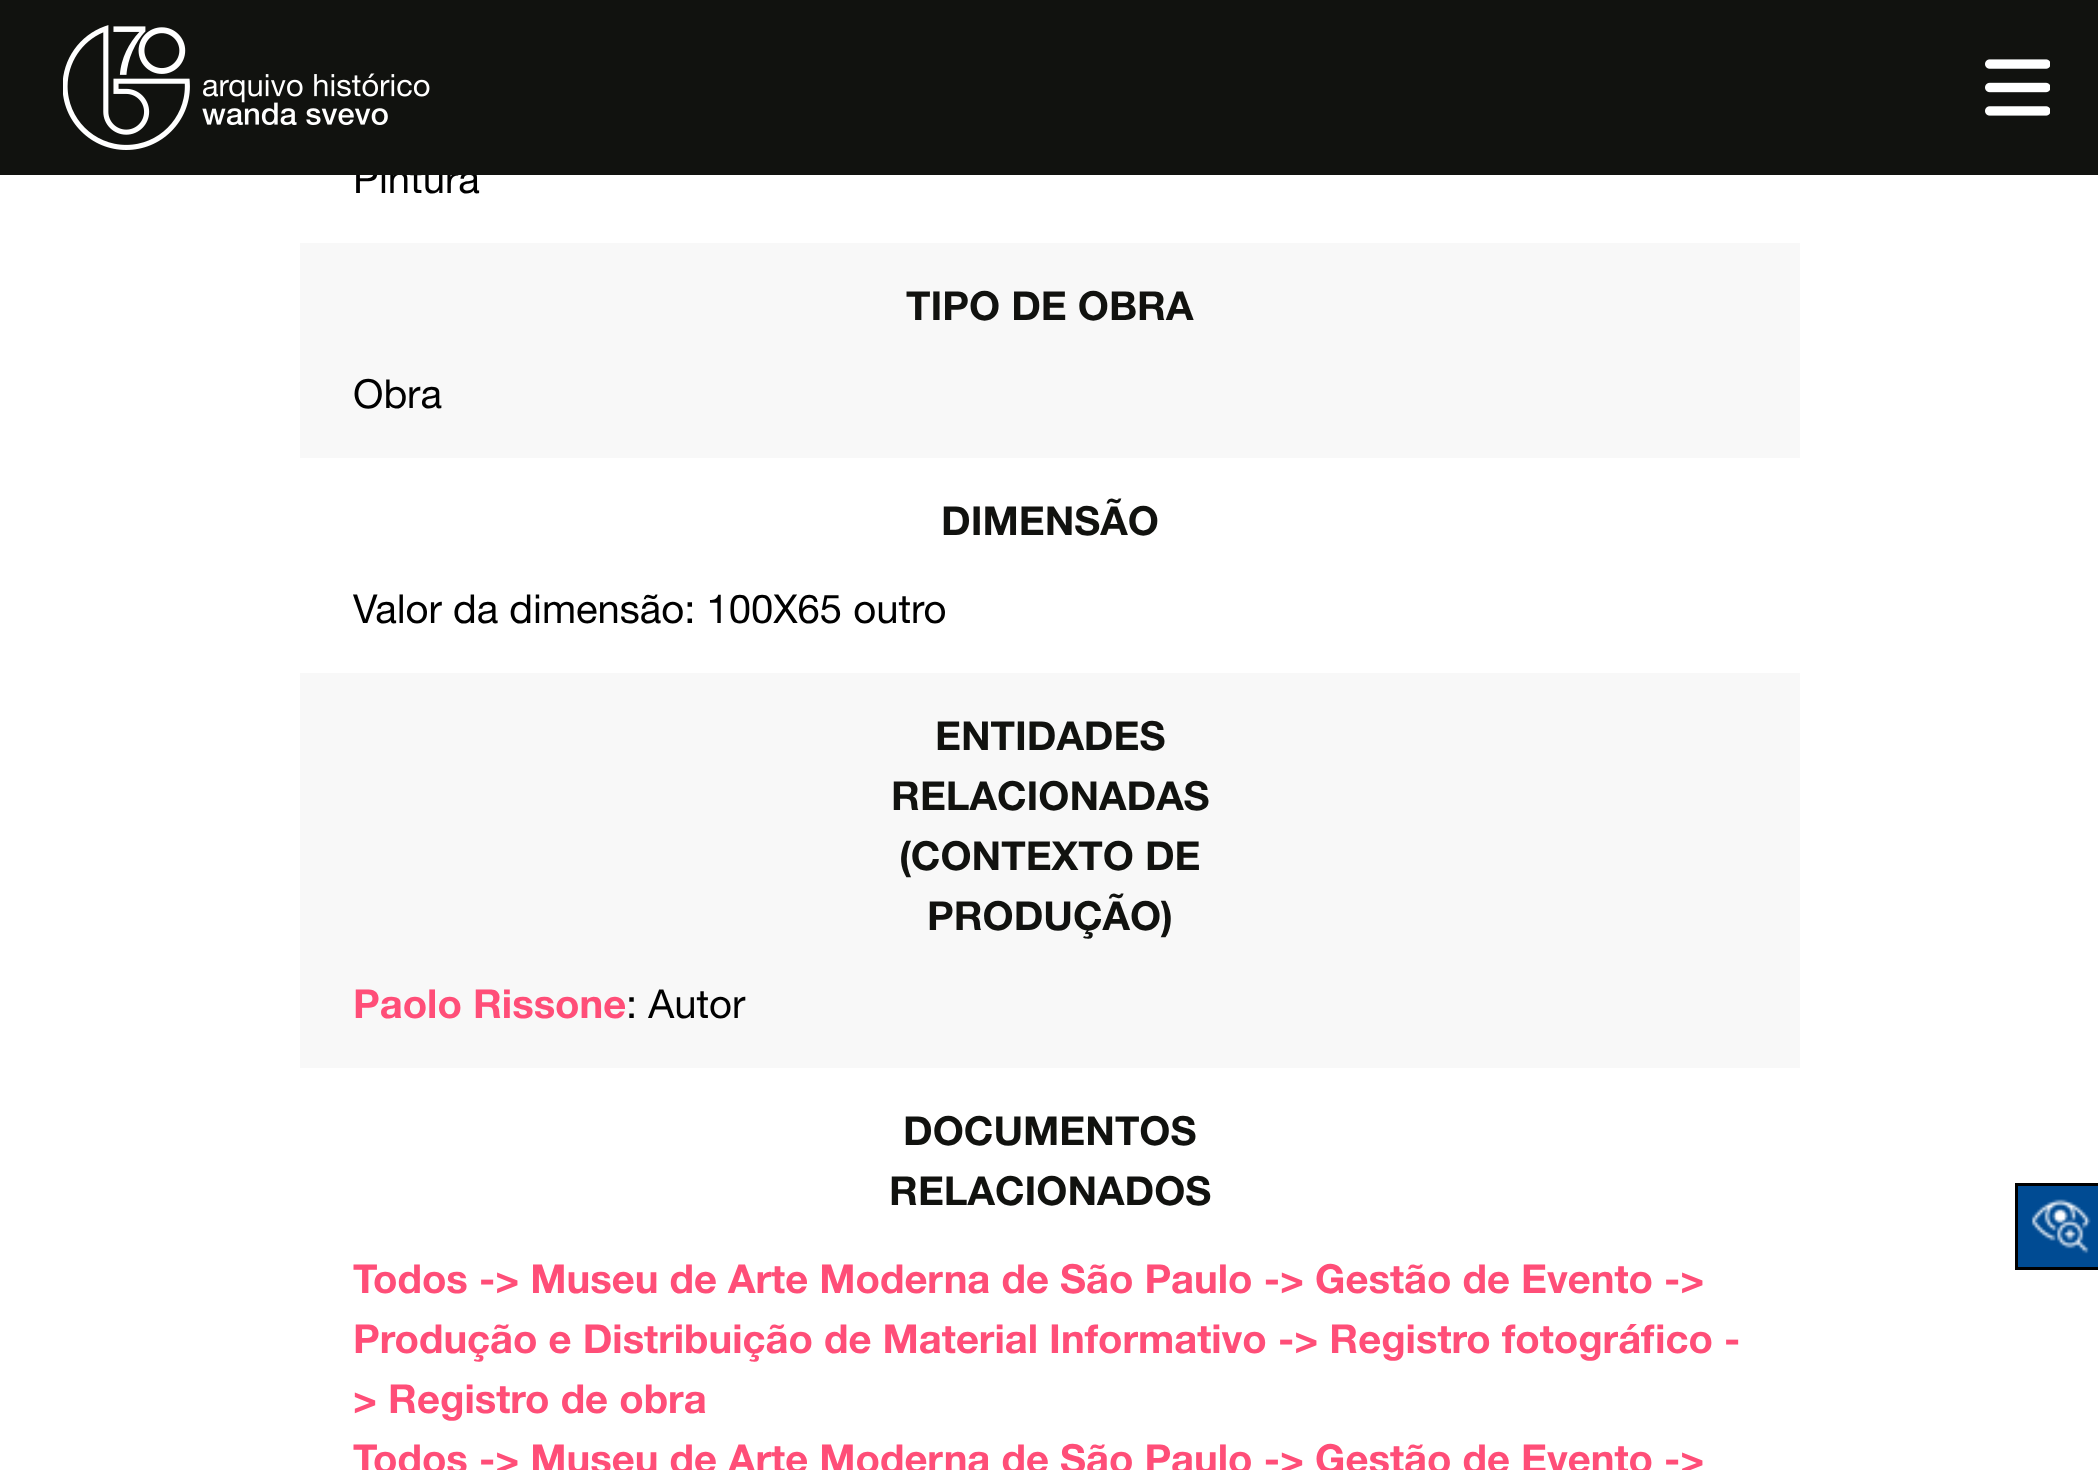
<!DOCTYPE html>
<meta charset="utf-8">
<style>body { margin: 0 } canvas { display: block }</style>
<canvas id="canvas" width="2098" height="1470"></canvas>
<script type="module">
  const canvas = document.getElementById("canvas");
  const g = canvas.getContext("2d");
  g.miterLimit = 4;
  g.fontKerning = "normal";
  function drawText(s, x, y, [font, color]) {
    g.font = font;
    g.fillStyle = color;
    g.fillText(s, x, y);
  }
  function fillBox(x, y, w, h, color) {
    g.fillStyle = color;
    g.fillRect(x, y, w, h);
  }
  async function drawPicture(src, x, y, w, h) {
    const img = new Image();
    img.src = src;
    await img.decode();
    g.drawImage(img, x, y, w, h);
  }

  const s1 = ["40px Helvetica Neue", "#000000"];
  const s2 = ["bold 40px Helvetica Neue", "#11120F"];
  const s3 = ["bold 40px Helvetica Neue", "#FF4E78"];

  fillBox(0, 0, 2098, 1470, "#FFFFFF");
  drawText("Pintura", 353, 193, s1);
  fillBox(0, 0, 2098, 175, "#11120F");
  await drawPicture("pic1.png", 63, 25, 367, 125);
  await drawPicture("pic2.png", 1985, 59, 65, 57);
  fillBox(300, 243, 1500, 215, "#F8F8F8");
  drawText("TIPO DE OBRA", 906, 320, s2);
  drawText("Obra", 353, 408, s1);
  drawText("DIMENSÃO", 941, 535, s2);
  drawText("Valor da dimensão: 100X65 outro", 353, 623, s1);
  fillBox(300, 673, 1500, 395, "#F8F8F8");
  drawText("ENTIDADES", 935, 750, s2);
  drawText("RELACIONADAS", 891, 810, s2);
  drawText("(CONTEXTO DE", 899, 870, s2);
  drawText("PRODUÇÃO)", 927, 930, s2);
  drawText("Paolo Rissone", 353, 1018, s3);
  drawText(": Autor", 626, 1018, s1);
  drawText("DOCUMENTOS", 903, 1145, s2);
  drawText("RELACIONADOS", 889, 1205, s2);
  drawText("Todos -> Museu de Arte Moderna de São Paulo -> Gestão de Evento ->", 353, 1293, s3);
  drawText("Produção e Distribuição de Material Informativo -> Registro fotográfico -", 353, 1353, s3);
  drawText("> Registro de obra", 353, 1413, s3);
  drawText("Todos -> Museu de Arte Moderna de São Paulo -> Gestão de Evento ->", 353, 1473, s3);
  g.fillStyle = "#004B93";
  g.beginPath();
  g.rect(2016.5, 1184.5, 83, 84);
  g.fill();
  g.strokeStyle = "#000000";
  g.lineWidth = 3;
  g.stroke();
  await drawPicture("pic3.png", 2031, 1199, 60, 55);
</script>
